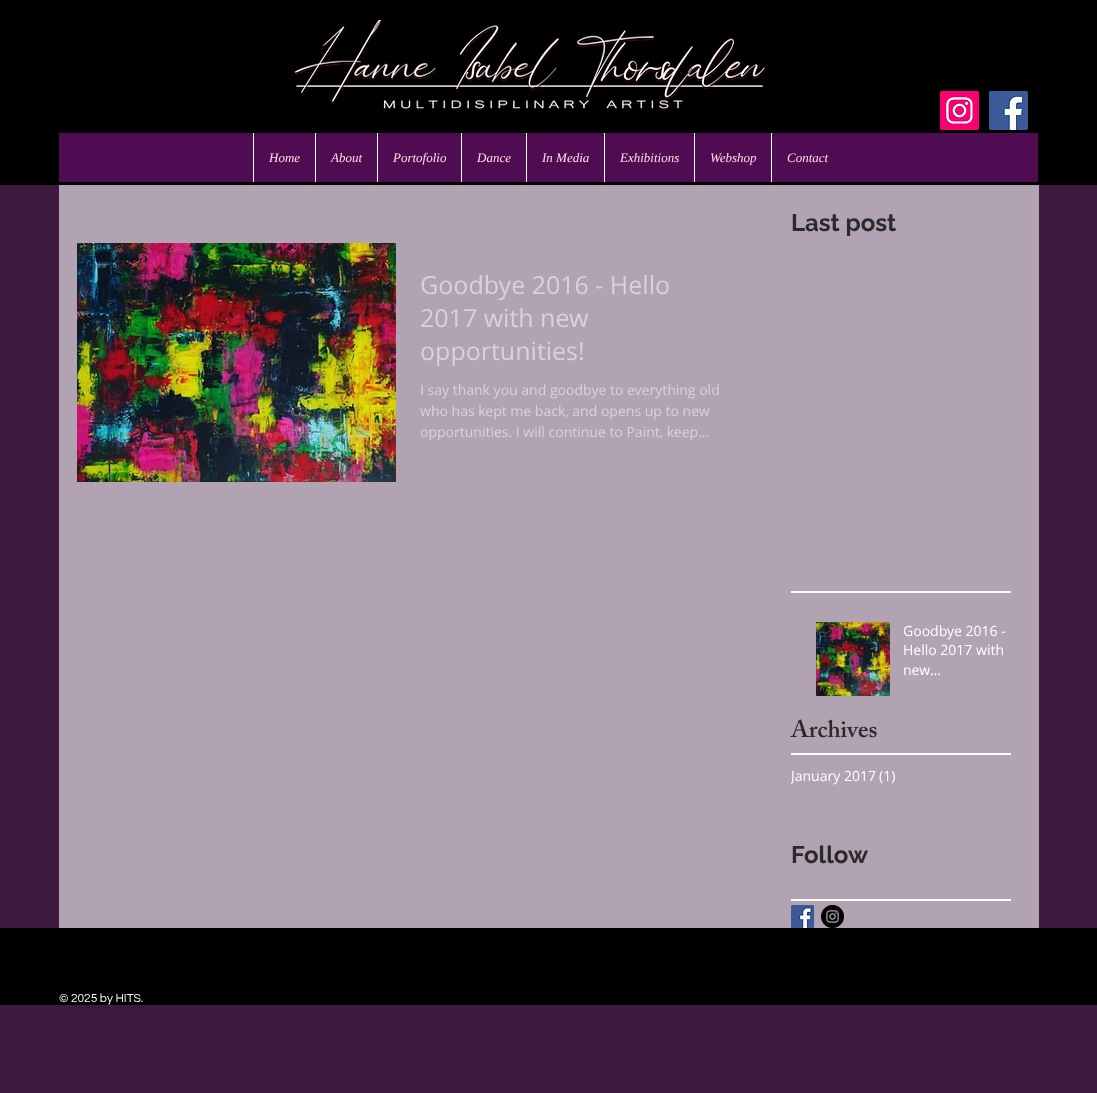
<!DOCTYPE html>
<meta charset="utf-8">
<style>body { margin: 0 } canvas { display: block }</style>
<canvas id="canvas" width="1097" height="1093"></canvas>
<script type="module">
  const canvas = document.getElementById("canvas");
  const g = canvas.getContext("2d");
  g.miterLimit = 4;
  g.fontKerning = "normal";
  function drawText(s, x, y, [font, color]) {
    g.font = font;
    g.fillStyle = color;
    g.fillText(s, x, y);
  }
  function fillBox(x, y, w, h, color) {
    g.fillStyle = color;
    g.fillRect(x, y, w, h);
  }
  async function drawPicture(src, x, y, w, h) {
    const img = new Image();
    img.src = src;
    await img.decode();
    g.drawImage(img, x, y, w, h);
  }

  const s1 = ["italic 13px Liberation Serif", "#FFE0E3"];
  const s2 = ["bold 24px Raleway", "#2A2A2A"];
  const s3 = ["25px Open Sans", "#D5D5D5"];
  const s4 = ["14px Open Sans", "#D5D5D5"];
  const s5 = ["14px Open Sans", "#FFFFFF"];
  const s6 = ["600 24px 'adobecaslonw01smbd'", "#2A2A2A"];
  const s7 = ["12px Questrial", "#FFFFFF"];

  fillBox(0, 0, 1097, 1093, "#3F1A40");
  fillBox(0, 0, 1097, 185, "#000000");
  await drawPicture("pic1.png", 294, 20, 472, 91);
  await drawPicture("pic2.png", 940, 91, 39, 39);
  await drawPicture("pic3.png", 989, 91, 39, 39);
  fillBox(59, 133, 979, 49, "#500C52");
  fillBox(253, 133, 1, 49, "#FFFFFF");
  drawText("Home", 269, 162, s1);
  fillBox(315, 133, 1, 49, "#FFFFFF");
  drawText("About", 331, 162, s1);
  fillBox(377, 133, 1, 49, "#FFFFFF");
  drawText("Portofolio", 393, 162, s1);
  fillBox(461, 133, 1, 49, "#FFFFFF");
  drawText("Dance", 477, 162, s1);
  fillBox(526, 133, 1, 49, "#FFFFFF");
  drawText("In Media", 542, 162, s1);
  fillBox(604, 133, 1, 49, "#FFFFFF");
  drawText("Exhibitions", 620, 162, s1);
  fillBox(694, 133, 1, 49, "#FFFFFF");
  drawText("Webshop", 710, 162, s1);
  fillBox(771, 133, 1, 49, "#FFFFFF");
  drawText("Contact", 787, 162, s1);
  fillBox(59, 185, 980, 743, "#B2A3B3");
  drawText("Last post", 791, 231, s2);
  await drawPicture("pic4.png", 77, 243, 319, 239);
  drawText("Goodbye 2016 - Hello", 420, 294, s3);
  drawText("2017 with new", 420, 327, s3);
  drawText("opportunities!", 420, 360, s3);
  drawText("I say thank you and goodbye to everything old", 420, 395, s4);
  drawText("who has kept me back, and opens up to new", 420, 416, s4);
  drawText("opportunities. I will continue to Paint, keep...", 420, 437, s4);
  fillBox(791, 591, 220, 2, "#FFFFFF");
  await drawPicture("pic5.png", 816, 622, 74, 74);
  drawText("Goodbye 2016 -", 903, 636, s5);
  drawText("Hello 2017 with", 903, 655, s5);
  drawText("new…", 903, 675, s5);
  drawText("Archives", 791, 737, s6);
  fillBox(791, 753, 220, 2, "#FFFFFF");
  g.save();
  g.beginPath();
  g.rect(791, 765, 104, 21);
  g.clip();
  drawText("January 2017", 791, 781, s5);
  g.restore();
  drawText("(1)", 879, 781, s5);
  drawText("Follow", 791, 863, s2);
  fillBox(791, 899, 220, 2, "#FFFFFF");
  await drawPicture("pic6.png", 791, 905, 23, 23);
  await drawPicture("pic7.png", 821, 905, 23, 23);
  fillBox(0, 928, 1097, 77, "#000000");
  drawText("© 2025 by HITS.", 59, 1002, s7);
</script>
